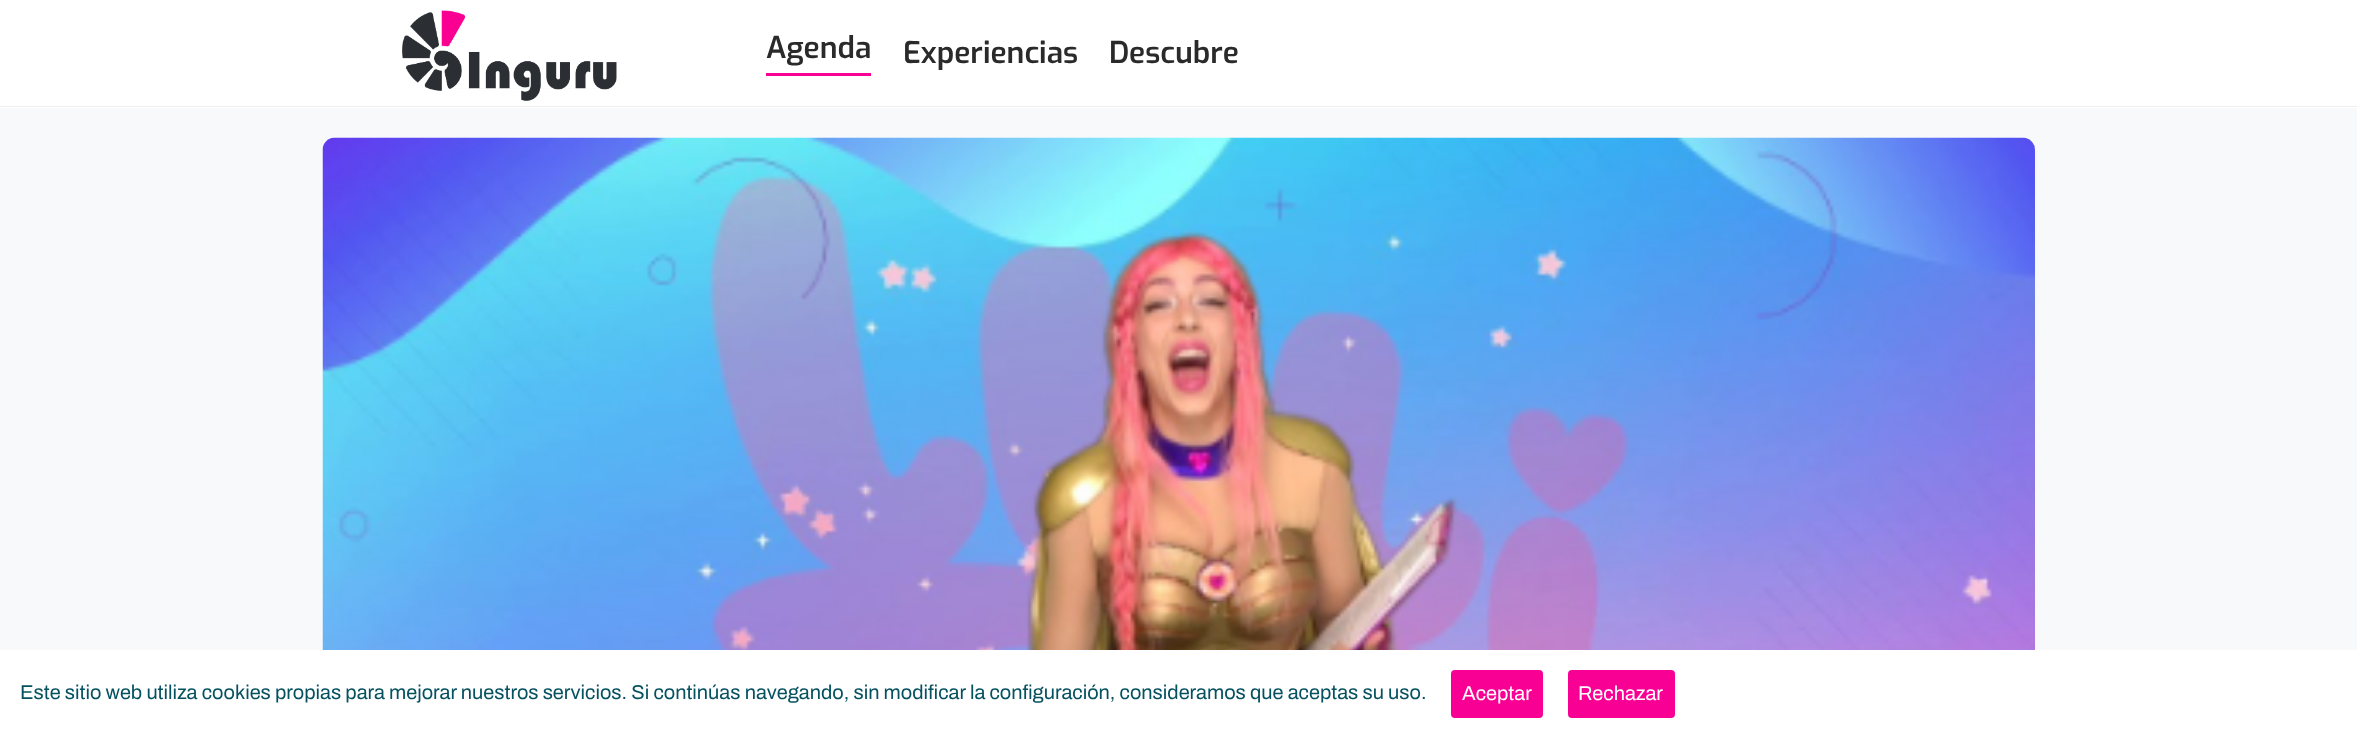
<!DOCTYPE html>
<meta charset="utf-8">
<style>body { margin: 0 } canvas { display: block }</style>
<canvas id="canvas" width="2357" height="737"></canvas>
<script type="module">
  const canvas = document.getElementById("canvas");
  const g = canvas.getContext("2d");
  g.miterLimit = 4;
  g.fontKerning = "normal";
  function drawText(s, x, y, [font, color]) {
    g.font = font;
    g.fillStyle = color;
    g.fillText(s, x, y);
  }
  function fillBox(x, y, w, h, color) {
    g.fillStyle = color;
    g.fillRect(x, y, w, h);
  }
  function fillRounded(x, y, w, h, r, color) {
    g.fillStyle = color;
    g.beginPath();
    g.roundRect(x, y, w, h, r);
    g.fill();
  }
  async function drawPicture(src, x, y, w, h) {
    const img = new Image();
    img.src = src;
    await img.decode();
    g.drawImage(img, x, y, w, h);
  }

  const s1 = ["600 30px Exo", "#2A2A2A"];
  const s2 = ["20px Archivo", "#055160"];
  const s3 = ["20px Archivo", "#FFFFFF"];

  fillBox(0, 0, 2357, 737, "#F8F9FA");
  fillBox(0, 0, 2357, 108, "#FFFFFF");
  fillBox(0, 106, 2357, 1, "#EEEEEE");
  await drawPicture("pic1.png", 402, 10, 215, 91);
  fillBox(766, 73, 105, 3, "#F90095");
  drawText("Agenda", 766, 58, s1);
  drawText("Experiencias", 903, 63, s1);
  drawText("Descubre", 1109, 63, s1);
  await drawPicture("pic2.png", 322, 137, 1713, 513);
  fillBox(0, 650, 2357, 87, "#FFFFFF");
  drawText("Este sitio web utiliza cookies propias para mejorar nuestros servicios. Si continúas navegando, sin modificar la configuración, consideramos que aceptas su uso.", 20, 699, s2);
  fillRounded(1451, 670, 92, 48, 4, "#F90095");
  drawText("Aceptar", 1462, 700, s3);
  fillRounded(1568, 670, 107, 48, 4, "#F90095");
  drawText("Rechazar", 1578, 700, s3);
</script>
